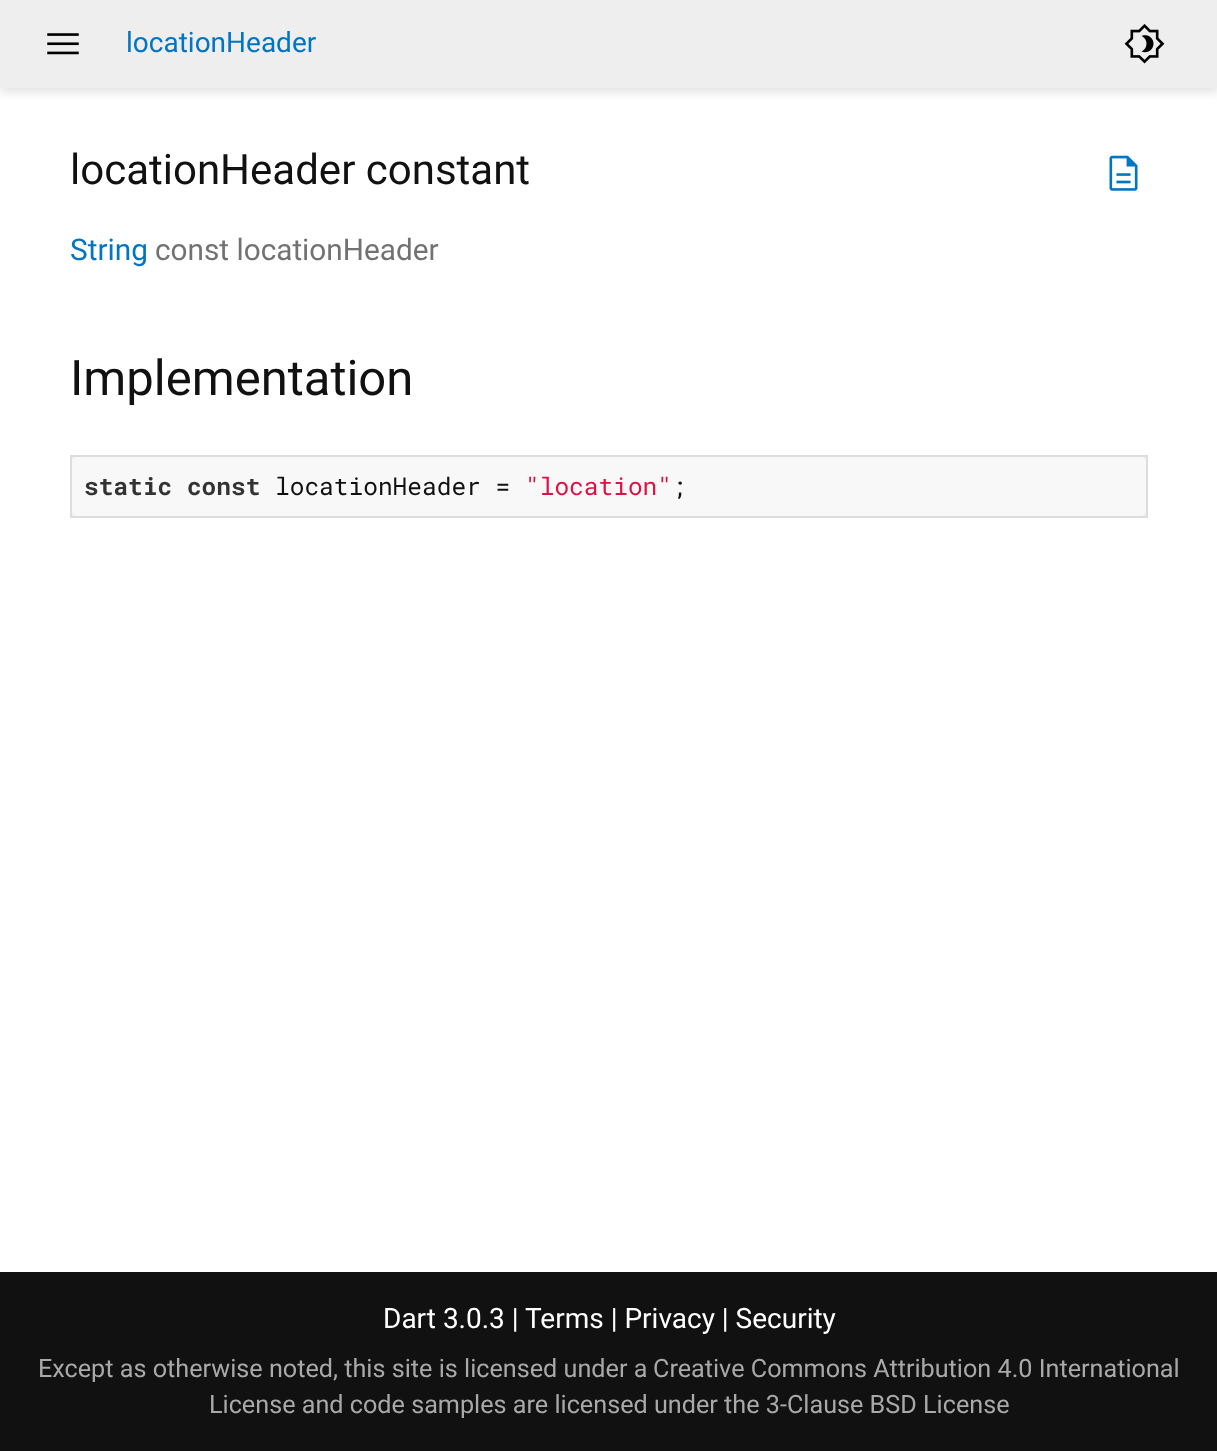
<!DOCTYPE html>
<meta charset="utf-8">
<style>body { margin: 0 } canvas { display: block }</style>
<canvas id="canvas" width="1217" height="1451"></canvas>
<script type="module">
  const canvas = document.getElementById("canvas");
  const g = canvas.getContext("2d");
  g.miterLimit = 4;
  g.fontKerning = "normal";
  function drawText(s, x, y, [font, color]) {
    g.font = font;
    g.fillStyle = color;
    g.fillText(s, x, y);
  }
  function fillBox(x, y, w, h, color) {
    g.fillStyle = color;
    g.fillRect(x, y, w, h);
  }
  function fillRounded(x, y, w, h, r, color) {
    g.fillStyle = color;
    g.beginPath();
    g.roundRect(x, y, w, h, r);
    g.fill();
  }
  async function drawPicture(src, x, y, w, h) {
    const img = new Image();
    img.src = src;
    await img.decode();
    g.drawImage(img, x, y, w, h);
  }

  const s1 = ["28px Roboto", "#0175C2"];
  const s2 = ["42px Roboto", "#111111"];
  const s3 = ["29.75px Roboto", "#0175C2"];
  const s4 = ["29.75px Roboto", "#727272"];
  const s5 = ["49px Roboto", "#111111"];
  const s6 = ["bold 24.5px Roboto Mono", "#333333"];
  const s7 = ["24.5px Roboto Mono", "#111111"];
  const s8 = ["24.5px Roboto Mono", "#DD1144"];
  const s9 = ["28px Roboto", "#FFFFFF"];
  const s10 = ["25.2px Roboto", "#A9A9A9"];

  fillBox(0, 0, 1217, 1451, "#FFFFFF");
  g.fillStyle = "rgba(0, 0, 0, 0.1)";
  g.filter = "blur(4.5px)";
  g.beginPath();
  g.rect(0, 5, 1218, 88);
  g.fill();
  g.filter = "none";
  fillBox(0, 0, 1217, 88, "#EEEEEE");
  await drawPicture("pic1.png", 47, 33, 32, 22);
  drawText("locationHeader", 126, 52, s1);
  await drawPicture("pic2.png", 1124, 24, 41, 40);
  drawText("locationHeader constant", 70, 184, s2);
  await drawPicture("pic3.png", 1109, 155, 29, 36);
  drawText("String", 70, 260, s3);
  drawText("const locationHeader", 155, 260, s4);
  drawText("Implementation", 70, 395, s5);
  g.fillStyle = "#EEEEEE";
  g.beginPath();
  g.rect(71, 456, 1076, 61);
  g.fill();
  g.strokeStyle = "#DDDDDD";
  g.lineWidth = 2;
  g.stroke();
  fillRounded(72, 457, 1074, 59, 5, "#F8F8F8");
  drawText("static const", 84, 495, s6);
  drawText("locationHeader =", 275, 495, s7);
  drawText("\"location\"", 525, 495, s8);
  drawText(";", 672, 495, s7);
  fillBox(0, 1272, 1217, 179, "#111111");
  drawText("Terms | Privacy | Security", 525, 1328, s9);
  drawText("Except as otherwise noted, this site is licensed under a", 38, 1377, s10);
  drawText("Creative Commons Attribution 4.0 International", 653, 1377, s10);
  drawText("License and code samples are licensed under the 3-Clause BSD License", 209, 1413, s10);
  drawText("Dart 3.0.3 |", 383, 1328, s9);
</script>
